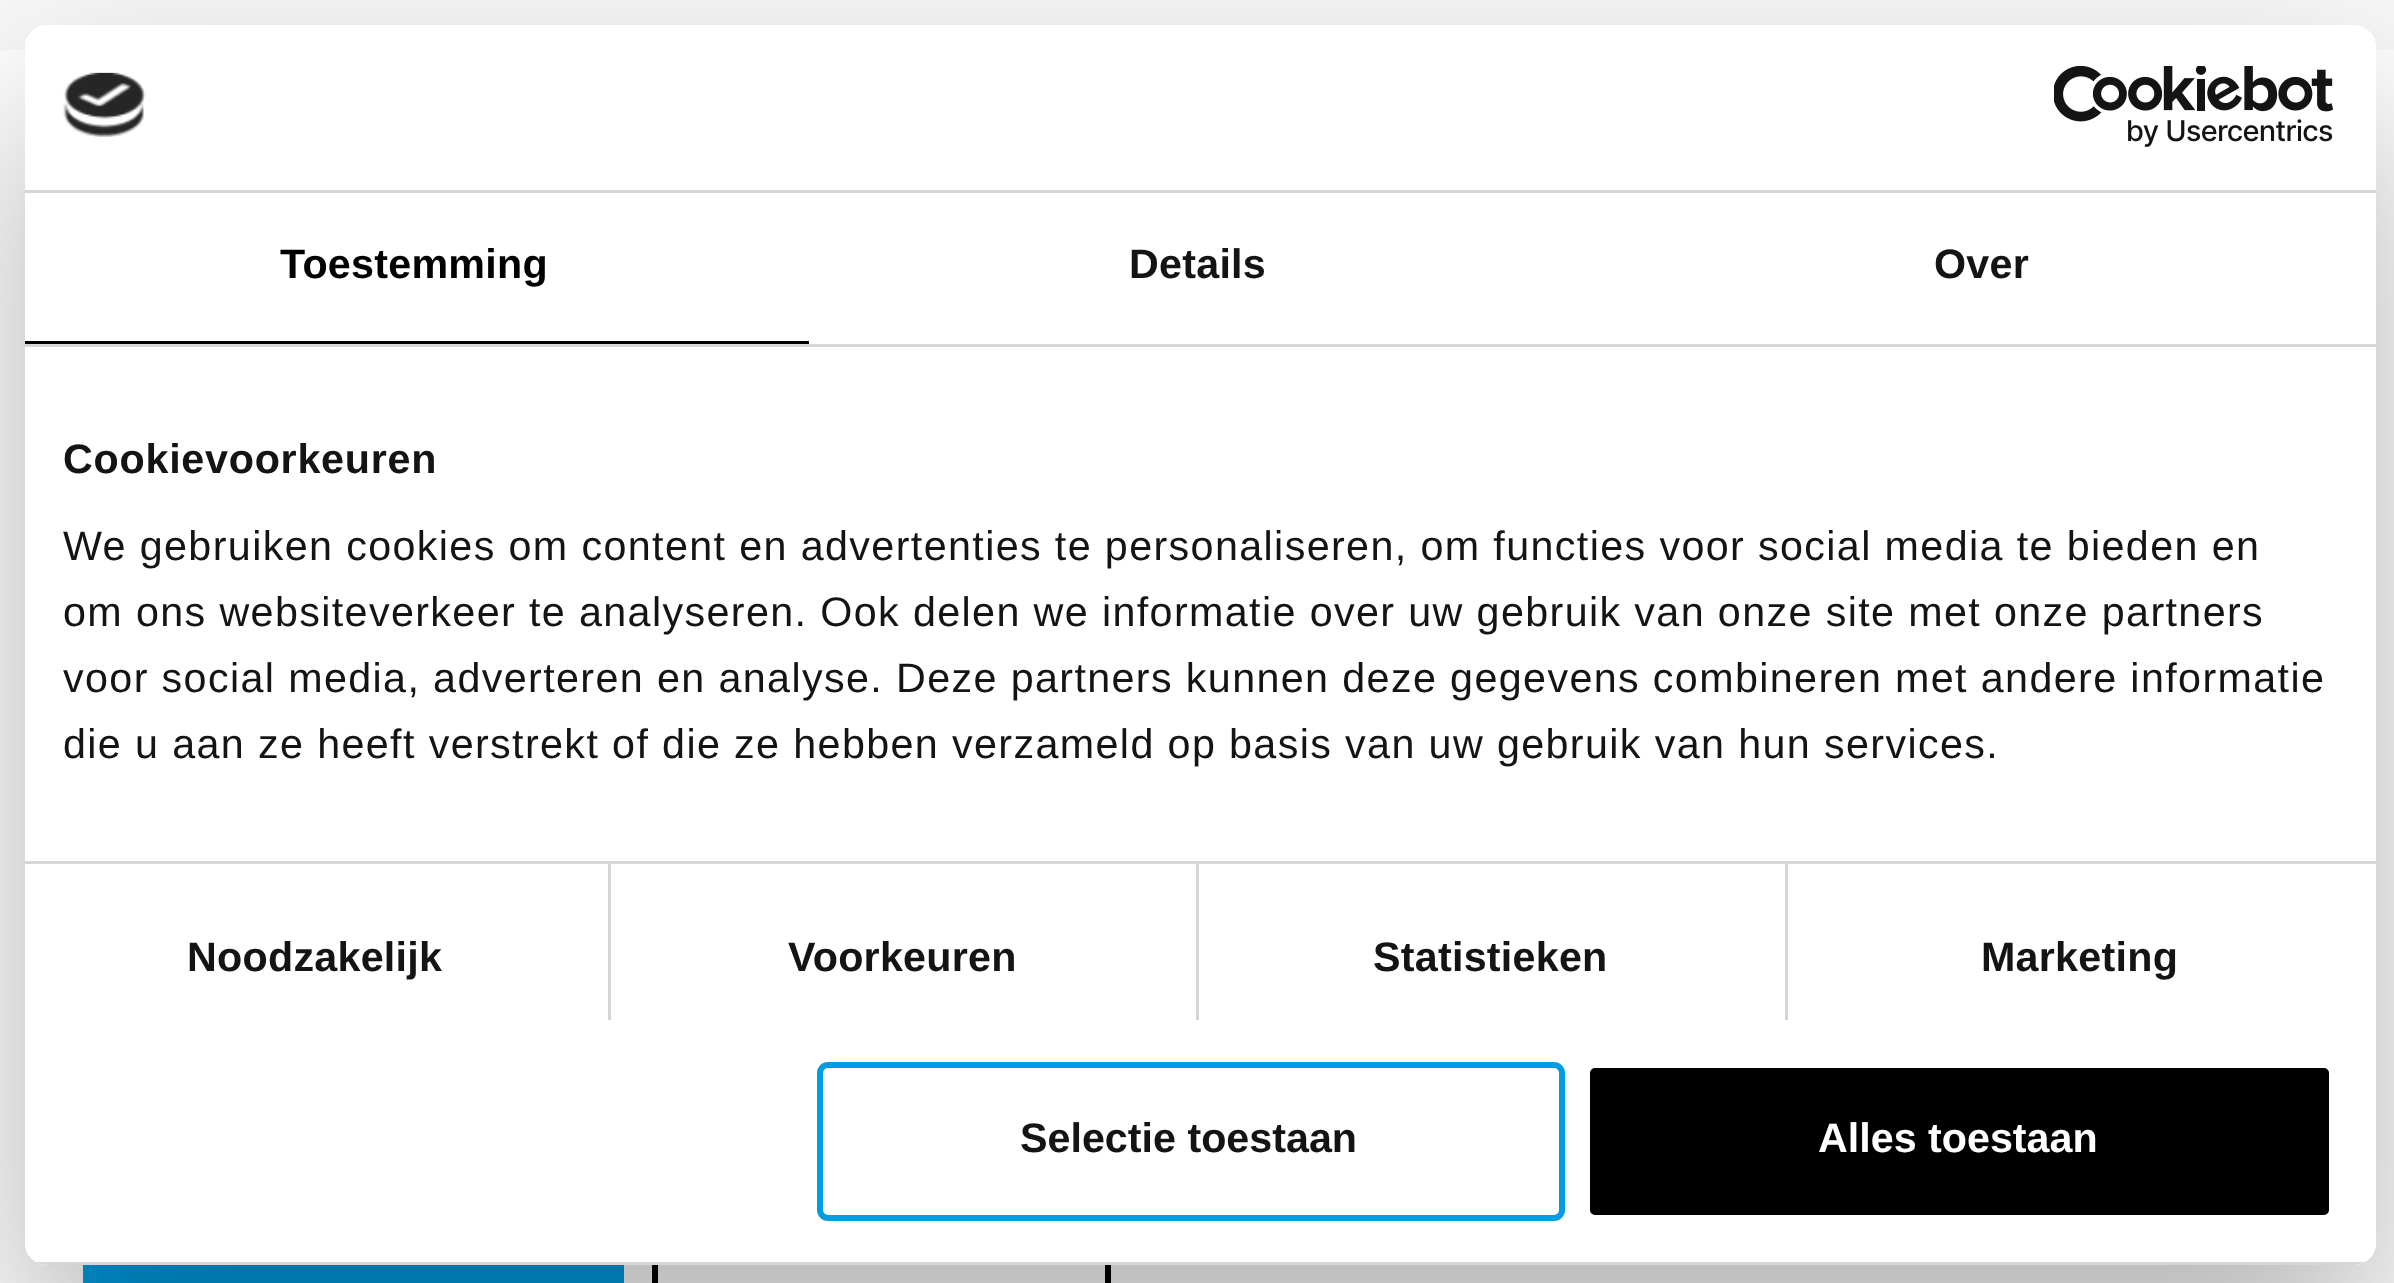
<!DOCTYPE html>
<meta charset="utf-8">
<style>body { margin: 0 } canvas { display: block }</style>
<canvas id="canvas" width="2394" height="1283"></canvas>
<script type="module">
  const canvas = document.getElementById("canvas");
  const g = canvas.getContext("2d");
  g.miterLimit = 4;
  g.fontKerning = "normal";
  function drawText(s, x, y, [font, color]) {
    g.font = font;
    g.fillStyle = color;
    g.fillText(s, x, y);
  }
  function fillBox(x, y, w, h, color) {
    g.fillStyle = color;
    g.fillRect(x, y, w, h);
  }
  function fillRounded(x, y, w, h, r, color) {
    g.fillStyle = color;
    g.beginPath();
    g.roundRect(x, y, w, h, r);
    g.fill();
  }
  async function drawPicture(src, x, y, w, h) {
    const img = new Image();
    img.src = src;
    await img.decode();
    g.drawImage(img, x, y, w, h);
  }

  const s1 = ["bold 41.25px Liberation Sans", "#000000"];
  const s2 = ["bold 41.25px Liberation Sans", "#141414"];
  const s3 = ["41.25px Liberation Sans", "#141414"];
  const s4 = ["bold 41.25px Liberation Sans", "#FFFFFF"];

  fillBox(0, 0, 2394, 1283, "#FFFFFF");
  fillBox(0, 0, 2394, 50, "#F8F8F8");
  fillBox(83, 1265, 541, 18, "#009DE1");
  g.strokeStyle = "#000000";
  g.lineWidth = 6;
  g.strokeRect(655, 1175, 453, 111);
  g.save();
  g.beginPath();
  g.moveTo(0, 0);
  g.lineTo(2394, 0);
  g.lineTo(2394, 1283);
  g.lineTo(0, 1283);
  g.closePath();
  g.moveTo(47, 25);
  g.lineTo(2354, 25);
  g.bezierCurveTo(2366, 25, 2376, 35, 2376, 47);
  g.lineTo(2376, 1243);
  g.bezierCurveTo(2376, 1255, 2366, 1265, 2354, 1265);
  g.lineTo(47, 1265);
  g.bezierCurveTo(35, 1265, 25, 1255, 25, 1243);
  g.lineTo(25, 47);
  g.bezierCurveTo(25, 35, 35, 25, 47, 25);
  g.closePath();
  g.clip("evenodd");
  g.fillStyle = "rgba(0, 0, 0, 0.3)";
  g.filter = "blur(93.5px)";
  g.beginPath();
  g.roundRect(25, 113, 2351, 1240, 22);
  g.fill();
  g.filter = "none";
  g.restore();
  fillRounded(25, 25, 2351, 1240, 22, "#FFFFFF");
  fillBox(25, 190, 2351, 3, "#D6D6D6");
  await drawPicture("pic1.png", 63, 72, 83, 65);
  await drawPicture("pic2.png", 2054, 66, 280, 81);
  fillBox(25, 344, 2351, 3, "#D6D6D6");
  fillBox(25, 341, 784, 3, "#000000");
  g.letterSpacing = "0.25px";
  drawText("Toestemming", 280, 278, s1);
  drawText("Details", 1129, 278, s2);
  drawText("Over", 1934, 278, s2);
  fillBox(25, 861, 2351, 3, "#D6D6D6");
  g.letterSpacing = "0.75px";
  drawText("Cookievoorkeuren", 63, 473, s2);
  g.letterSpacing = "1.38px";
  drawText("We gebruiken cookies om content en advertenties te personaliseren, om functies voor social media te bieden en", 63, 560, s3);
  drawText("om ons websiteverkeer te analyseren. Ook delen we informatie over uw gebruik van onze site met onze partners", 63, 626, s3);
  drawText("voor social media, adverteren en analyse. Deze partners kunnen deze gegevens combineren met andere informatie", 63, 692, s3);
  drawText("die u aan ze heeft verstrekt of die ze hebben verzameld op basis van uw gebruik van hun services.", 63, 758, s3);
  fillBox(608, 864, 3, 156, "#D6D6D6");
  g.letterSpacing = "0.25px";
  drawText("Noodzakelijk", 187, 971, s2);
  fillBox(1196, 864, 3, 156, "#D6D6D6");
  drawText("Voorkeuren", 788, 971, s2);
  fillBox(1785, 864, 3, 156, "#D6D6D6");
  drawText("Statistieken", 1373, 971, s2);
  drawText("Marketing", 1981, 971, s2);
  g.save();
  g.beginPath();
  g.roundRect(25, 25, 2351, 1240, 22);
  g.clip();
  fillBox(36, 1262, 2329, 3, "#D6D6D6");
  g.restore();
  g.beginPath();
  g.roundRect(820, 1065, 742, 153, 8);
  g.strokeStyle = "#009DE1";
  g.stroke();
  g.letterSpacing = "0px";
  drawText("Selectie toestaan", 1020, 1152, s2);
  g.fillStyle = "#000000";
  g.beginPath();
  g.roundRect(1587, 1065, 745, 153, 8);
  g.fill();
  g.strokeStyle = "#FFFFFF";
  g.stroke();
  drawText("Alles toestaan", 1818, 1152, s4);
</script>
